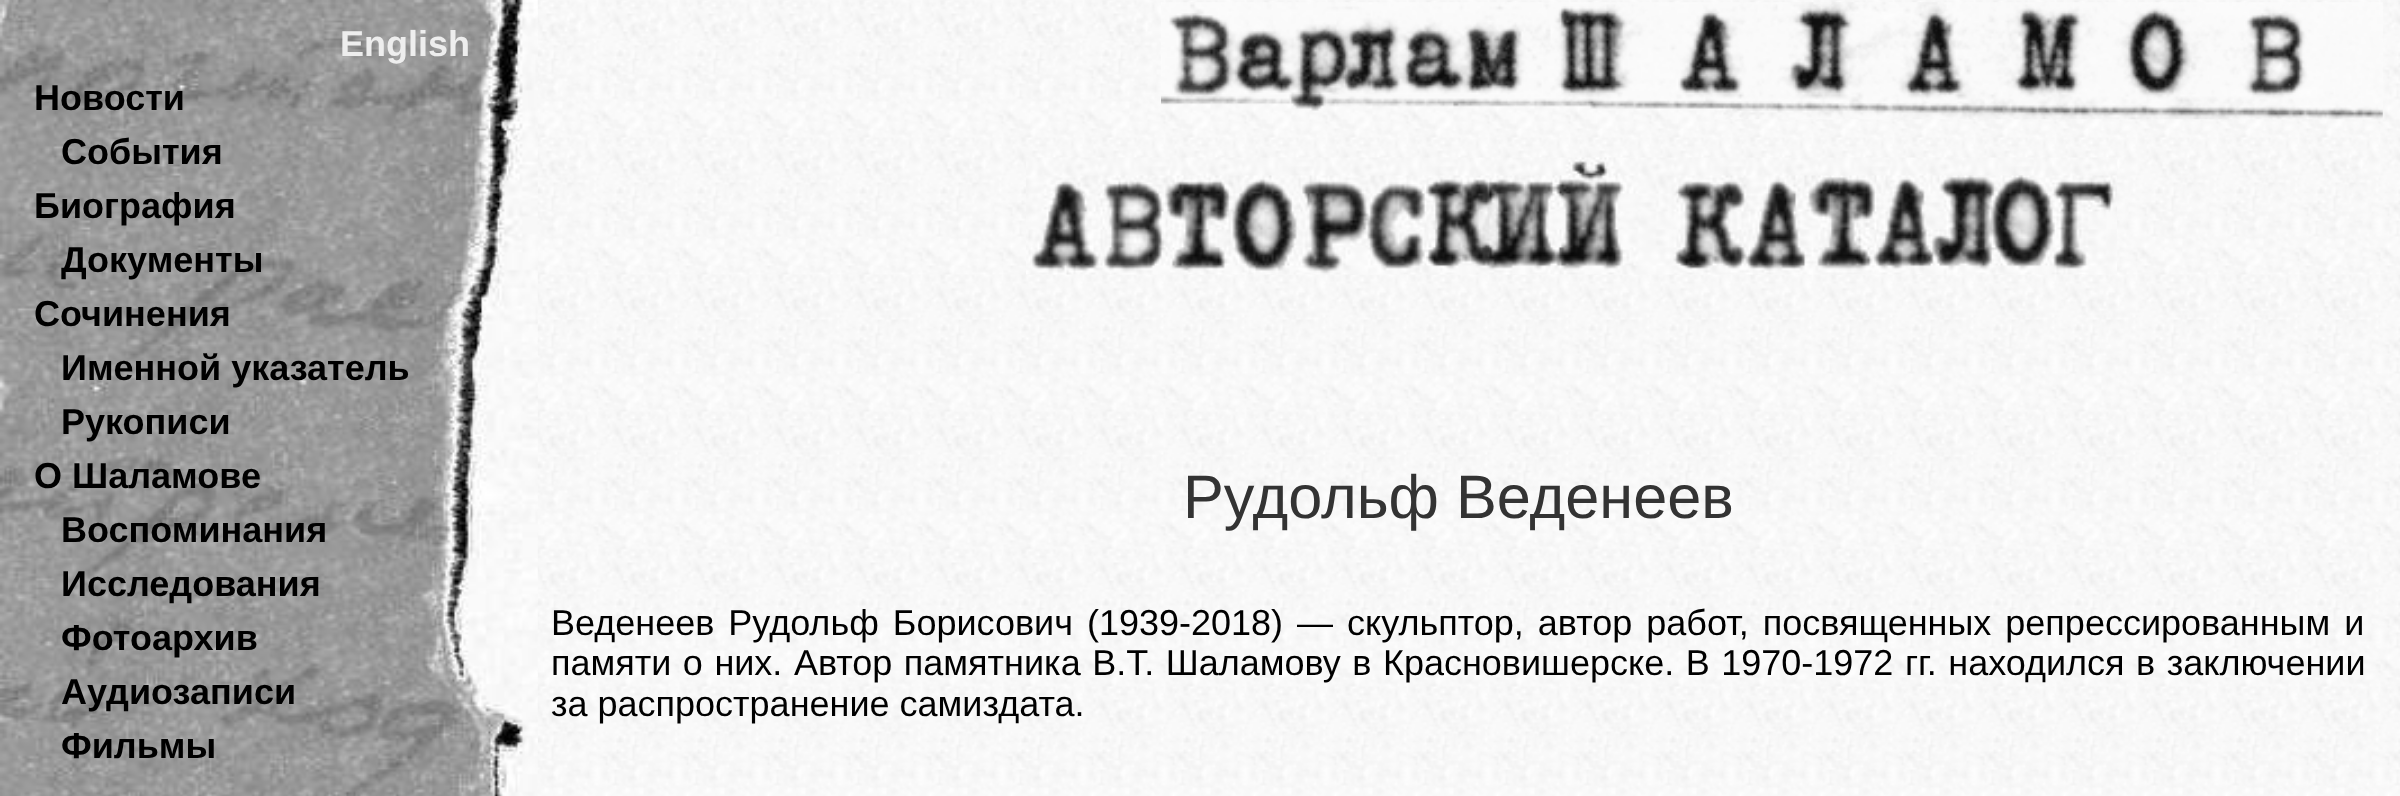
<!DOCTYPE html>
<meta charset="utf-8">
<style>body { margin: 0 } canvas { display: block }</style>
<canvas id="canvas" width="2400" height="796"></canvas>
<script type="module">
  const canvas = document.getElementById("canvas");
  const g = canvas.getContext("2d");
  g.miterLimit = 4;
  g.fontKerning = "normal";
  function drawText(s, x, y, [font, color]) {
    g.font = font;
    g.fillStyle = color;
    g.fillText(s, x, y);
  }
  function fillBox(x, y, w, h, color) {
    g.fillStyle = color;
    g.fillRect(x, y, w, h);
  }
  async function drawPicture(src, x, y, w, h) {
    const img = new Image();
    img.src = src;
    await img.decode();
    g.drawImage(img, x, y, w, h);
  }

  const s1 = ["bold 36px Liberation Sans", "#EEEEEE"];
  const s2 = ["bold 36px Liberation Sans", "#000000"];
  const s3 = ["61.25px Liberation Sans", "#333333"];
  const s4 = ["36px Liberation Sans", "#000000"];

  fillBox(0, 0, 2400, 796, "#FFFFFF");
  await drawPicture("pic1.png", 537, 0, 1863, 796);
  await drawPicture("pic2.png", 0, 0, 538, 796);
  drawText("English", 340, 56, s1);
  drawText("Новости", 34, 110, s2);
  drawText("События", 61, 164, s2);
  drawText("Биография", 34, 218, s2);
  drawText("Документы", 61, 272, s2);
  drawText("Сочинения", 34, 326, s2);
  drawText("Именной указатель", 61, 380, s2);
  drawText("Рукописи", 61, 434, s2);
  drawText("О Шаламове", 34, 488, s2);
  drawText("Воспоминания", 61, 542, s2);
  drawText("Исследования", 61, 596, s2);
  drawText("Фотоархив", 61, 650, s2);
  drawText("Аудиозаписи", 61, 704, s2);
  drawText("Фильмы", 61, 758, s2);
  await drawPicture("pic3.png", 1161, 2, 1222, 118);
  await drawPicture("pic4.png", 1026, 157, 1091, 118);
  drawText("Рудольф Веденеев", 1183, 518, s3);
  g.wordSpacing = "4px";
  drawText("Веденеев Рудольф Борисович (1939-2018) — скульптор, автор работ, посвященных репрессированным и", 551, 635, s4);
  g.wordSpacing = "1.5px";
  drawText("памяти о них. Автор памятника В.Т. Шаламову в Красновишерске. В 1970-1972 гг. находился в заключении", 551, 675, s4);
  g.wordSpacing = "0px";
  drawText("за распространение самиздата.", 551, 716, s4);
</script>
